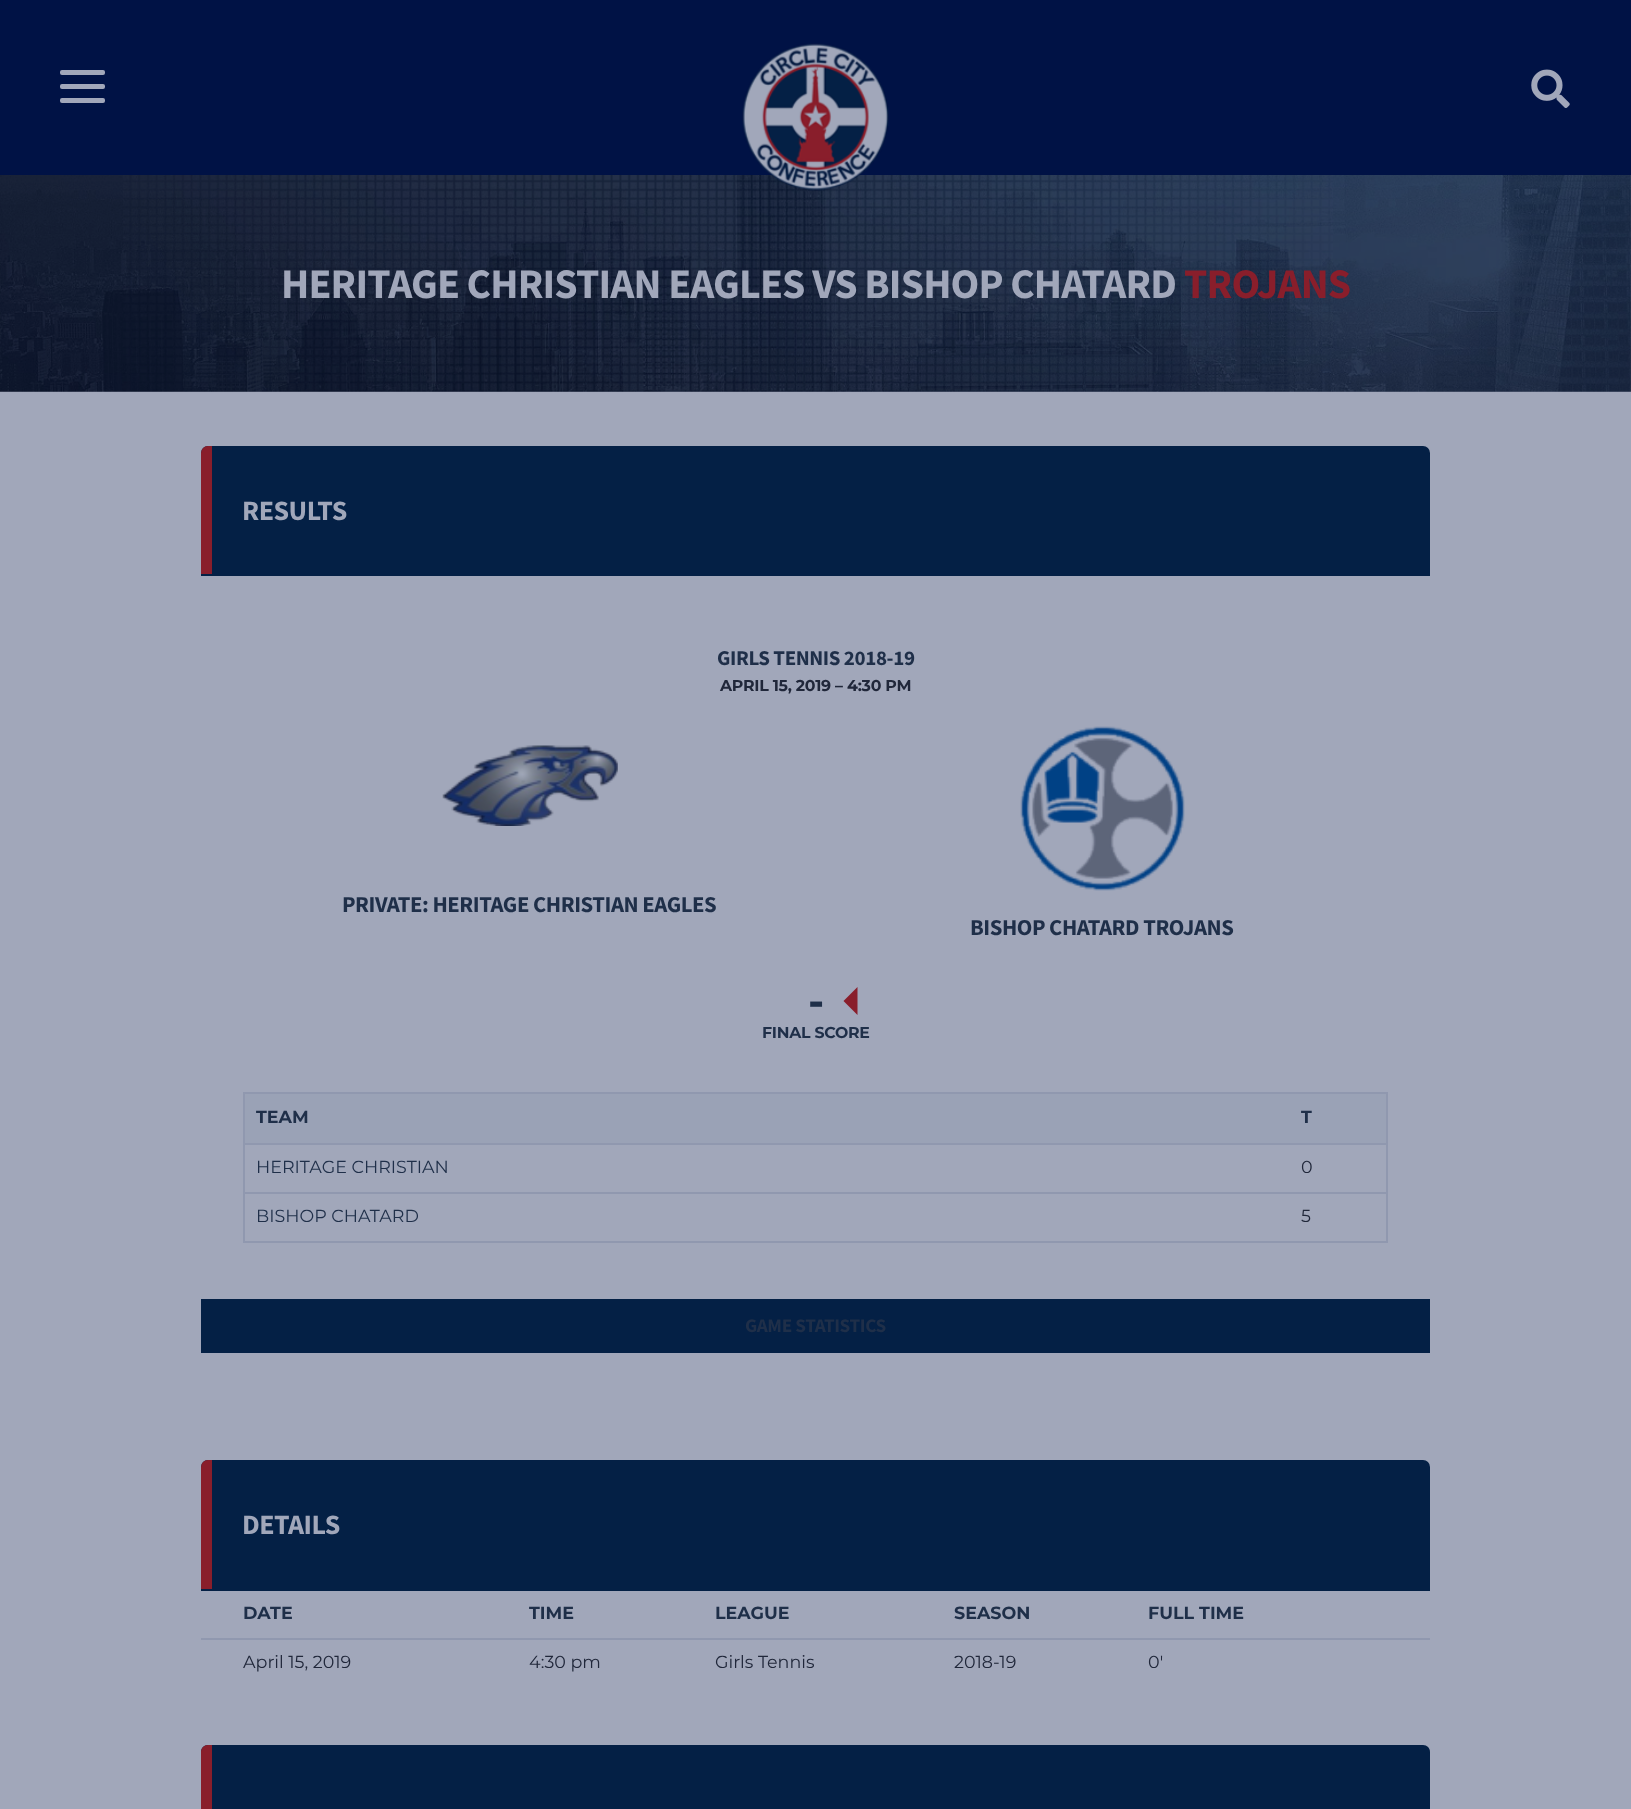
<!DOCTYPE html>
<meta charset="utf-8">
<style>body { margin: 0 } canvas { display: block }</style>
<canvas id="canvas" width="1631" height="1809"></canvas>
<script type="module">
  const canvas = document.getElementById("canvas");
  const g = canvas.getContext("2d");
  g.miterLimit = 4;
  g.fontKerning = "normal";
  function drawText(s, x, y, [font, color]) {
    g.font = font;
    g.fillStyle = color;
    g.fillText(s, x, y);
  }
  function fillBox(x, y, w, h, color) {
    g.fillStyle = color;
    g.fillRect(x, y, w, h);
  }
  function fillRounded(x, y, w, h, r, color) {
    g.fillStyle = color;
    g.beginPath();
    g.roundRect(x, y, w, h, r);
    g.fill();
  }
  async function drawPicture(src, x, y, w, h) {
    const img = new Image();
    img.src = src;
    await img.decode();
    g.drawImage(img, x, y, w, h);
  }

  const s1 = ["bold 42px Source Sans Pro", "#A1A7BA"];
  const s2 = ["bold 42px Source Sans Pro", "#891E2B"];
  const s3 = ["bold 28px Source Sans Pro", "#A1A7BA"];
  const s4 = ["bold 21px Source Sans Pro", "#1F2F49"];
  const s5 = ["bold 15.75px Montserrat", "#20273A"];
  const s6 = ["bold 22.75px Source Sans Pro", "#1F2F49"];
  const s7 = ["bold 42px Montserrat", "#1F2F49"];
  const s8 = ["bold 15.75px Montserrat", "#1F2F49"];
  const s9 = ["bold 17.5px Montserrat", "#1F2F49"];
  const s10 = ["100 17.5px Montserrat", "#1F2F49"];
  const s11 = ["100 17.5px Montserrat", "#20273A"];
  const s12 = ["bold 19.25px Source Sans Pro", "#1F2F49"];

  fillBox(0, 0, 1631, 1809, "#A1A7BA");
  fillBox(0, 0, 1631, 175, "#001245");
  await drawPicture("pic3.png", 0, 175, 1631, 217);
  await drawPicture("pic4.png", 123, 175, 1210, 216);
  await drawPicture("pic1.png", 742, 43, 147, 148);
  fillRounded(60, 70, 45, 5, 2, "#A1A7BA");
  fillRounded(60, 84, 45, 5, 2, "#A1A7BA");
  fillRounded(60, 98, 45, 5, 2, "#A1A7BA");
  await drawPicture("pic2.png", 1531, 69, 39, 39);
  g.letterSpacing = "-0.85px";
  drawText("HERITAGE CHRISTIAN EAGLES VS BISHOP CHATARD", 281, 298, s1);
  drawText("TROJANS", 1184, 298, s2);
  g.fillStyle = "#042045";
  g.beginPath();
  g.roundRect(201, 446, 1229, 130, [7, 7, 0, 0]);
  g.fill();
  g.fillStyle = "#891E2B";
  g.beginPath();
  g.roundRect(201, 446, 11, 128, [7, 0, 0, 0]);
  g.fill();
  g.letterSpacing = "-0.5px";
  drawText("RESULTS", 242, 520, s3);
  g.letterSpacing = "-0.4px";
  drawText("GIRLS TENNIS 2018-19", 717, 665, s4);
  g.letterSpacing = "-0.25px";
  drawText("APRIL 15, 2019", 720, 691, s5);
  drawText("–", 835, 691, s5);
  drawText("4:30 PM", 847, 691, s5);
  await drawPicture("pic5.png", 442, 745, 176, 81);
  g.letterSpacing = "-0.45px";
  drawText("PRIVATE: HERITAGE CHRISTIAN EAGLES", 342, 912, s6);
  await drawPicture("pic6.png", 1020, 726, 165, 165);
  drawText("BISHOP CHATARD TROJANS", 970, 935, s6);
  g.letterSpacing = "-0.85px";
  drawText("-", 808, 1016, s7);
  g.fillStyle = "#891E2B";
  g.beginPath();
  g.moveTo(857.5, 987);
  g.lineTo(857.5, 1015);
  g.lineTo(843.5, 1001);
  g.closePath();
  g.fill();
  g.letterSpacing = "-0.25px";
  drawText("FINAL SCORE", 762, 1038, s8);
  fillBox(243, 1092, 1145, 2, "#9098AF");
  fillBox(1386, 1092, 2, 151, "#9098AF");
  fillBox(243, 1241, 1145, 2, "#9098AF");
  fillBox(243, 1092, 2, 151, "#9098AF");
  fillBox(245, 1094, 1141, 49, "#9AA2B6");
  g.letterSpacing = "0px";
  drawText("TEAM", 256, 1123, s9);
  drawText("T", 1301, 1123, s9);
  drawText("HERITAGE CHRISTIAN", 256, 1173, s10);
  fillBox(243, 1143, 1145, 2, "#9098AF");
  drawText("0", 1301, 1173, s11);
  drawText("BISHOP CHATARD", 256, 1222, s10);
  fillBox(243, 1192, 1145, 2, "#9098AF");
  drawText("5", 1301, 1222, s11);
  fillBox(201, 1299, 1229, 54, "#042045");
  g.letterSpacing = "-0.4px";
  drawText("GAME STATISTICS", 745, 1332, s12);
  g.fillStyle = "#042045";
  g.beginPath();
  g.roundRect(201, 1460, 1229, 131, [7, 7, 0, 0]);
  g.fill();
  g.fillStyle = "#891E2B";
  g.beginPath();
  g.roundRect(201, 1460, 11, 129, [7, 0, 0, 0]);
  g.fill();
  g.letterSpacing = "-0.5px";
  drawText("DETAILS", 242, 1534, s3);
  g.letterSpacing = "0px";
  drawText("DATE", 243, 1619, s9);
  drawText("TIME", 529, 1619, s9);
  drawText("LEAGUE", 715, 1619, s9);
  drawText("SEASON", 954, 1619, s9);
  drawText("FULL TIME", 1148, 1619, s9);
  drawText("April 15, 2019", 243, 1668, s11);
  drawText("4:30 pm", 529, 1668, s11);
  drawText("Girls Tennis", 715, 1668, s11);
  drawText("2018-19", 954, 1668, s11);
  fillBox(201, 1638, 1229, 2, "#9098AF");
  drawText("0'", 1148, 1668, s11);
  g.fillStyle = "#042045";
  g.beginPath();
  g.moveTo(208, 1745);
  g.lineTo(1423, 1745);
  g.bezierCurveTo(1427, 1745, 1430, 1748, 1430, 1752);
  g.lineTo(1430, 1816);
  g.lineTo(201, 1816);
  g.lineTo(201, 1752);
  g.bezierCurveTo(201, 1748, 204, 1745, 208, 1745);
  g.closePath();
  g.fill();
  g.fillStyle = "#891E2B";
  g.beginPath();
  g.moveTo(208, 1745);
  g.lineTo(212, 1745);
  g.lineTo(212, 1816);
  g.lineTo(201, 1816);
  g.lineTo(201, 1752);
  g.bezierCurveTo(201, 1748, 204, 1745, 208, 1745);
  g.closePath();
  g.fill();
</script>
